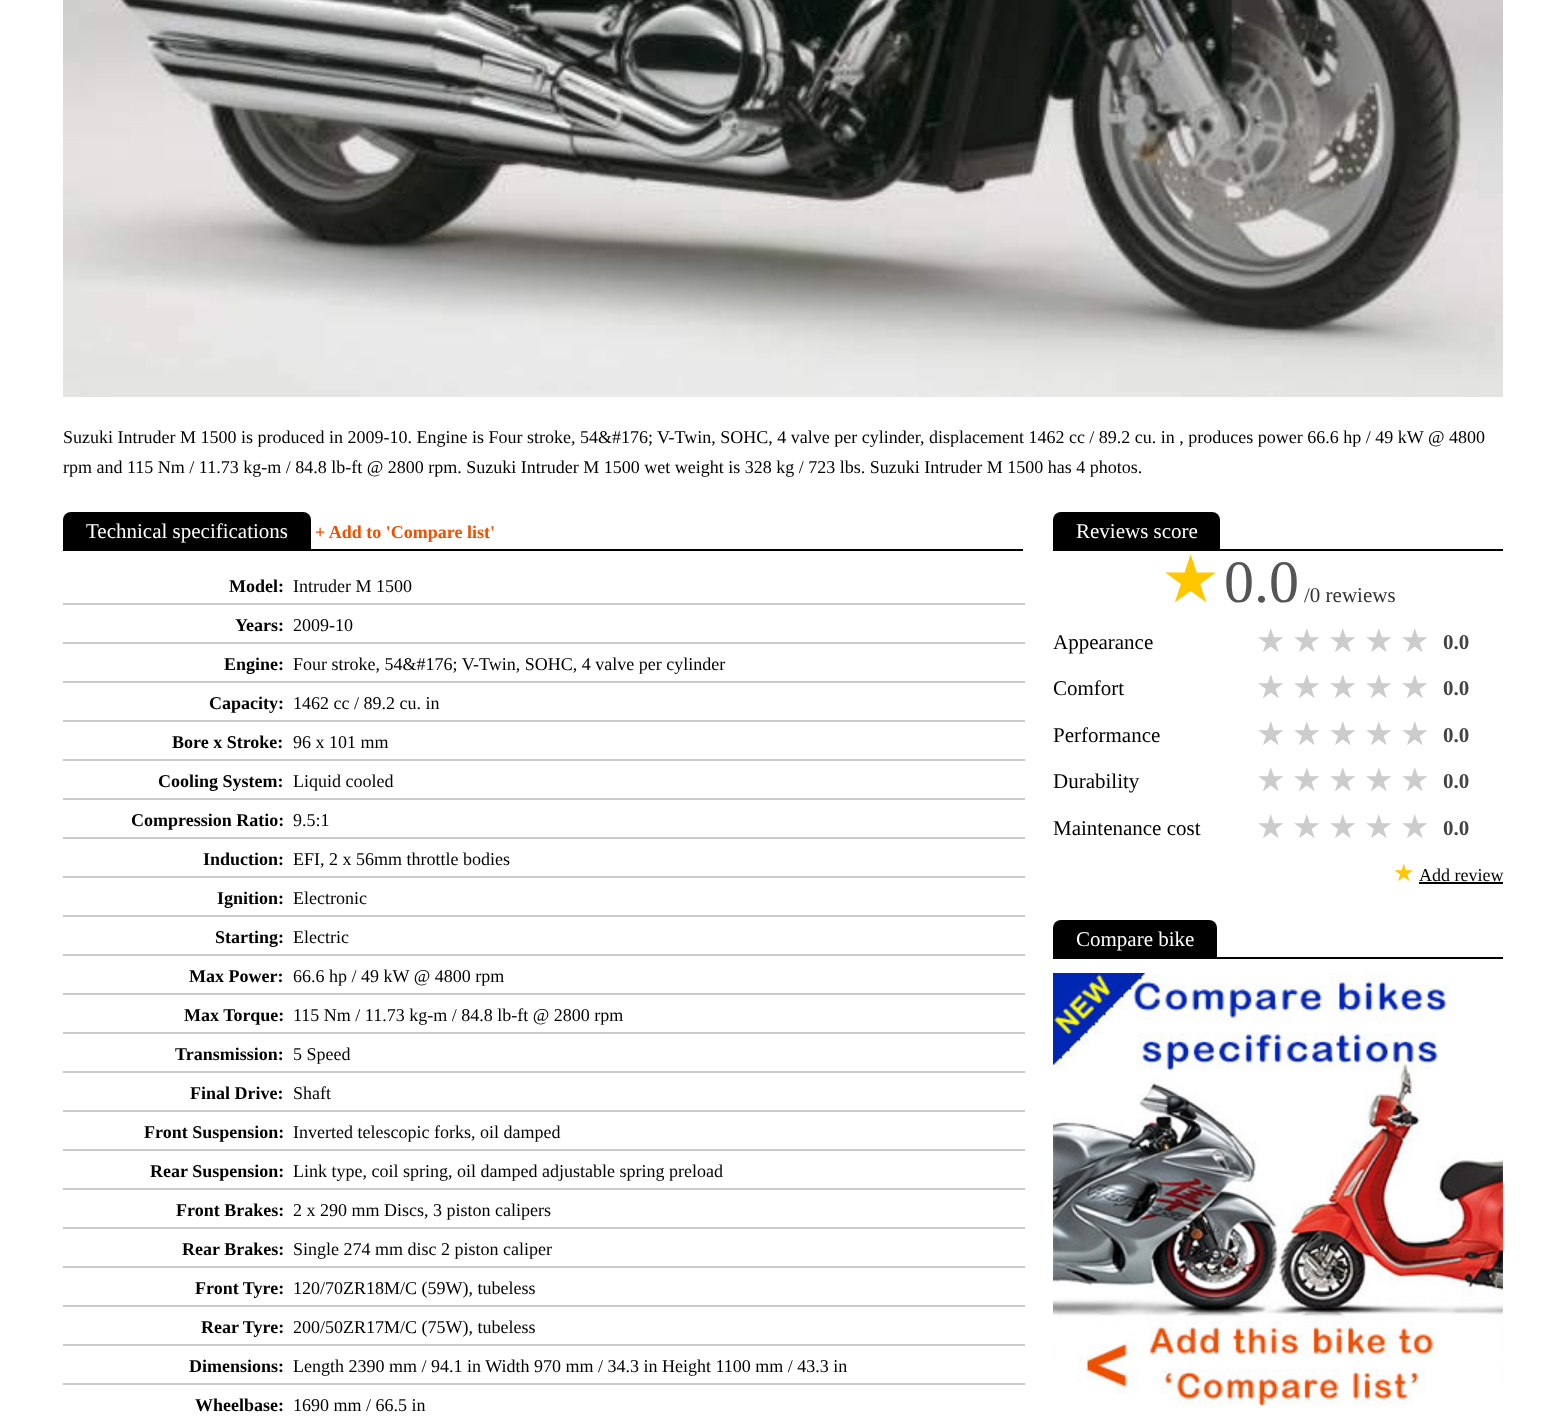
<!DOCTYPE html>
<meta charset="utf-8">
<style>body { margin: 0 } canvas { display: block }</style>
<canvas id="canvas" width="1566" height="1418"></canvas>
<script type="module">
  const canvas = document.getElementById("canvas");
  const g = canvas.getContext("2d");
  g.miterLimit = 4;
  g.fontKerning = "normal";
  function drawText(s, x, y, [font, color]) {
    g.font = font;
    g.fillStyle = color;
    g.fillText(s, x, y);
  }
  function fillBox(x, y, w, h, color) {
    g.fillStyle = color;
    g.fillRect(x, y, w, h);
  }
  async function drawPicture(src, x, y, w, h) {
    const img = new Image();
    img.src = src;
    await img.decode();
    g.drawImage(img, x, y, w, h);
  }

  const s1 = ["18px Liberation Serif", "#000000"];
  const s2 = ["21px Liberation Serif", "#FFFFFF"];
  const s3 = ["bold 18px Liberation Serif", "#EB5100"];
  const s4 = ["bold 18px Liberation Serif", "#000000"];
  const s5 = ["66px DejaVu Sans", "#FFC700"];
  const s6 = ["60px Liberation Serif", "#555555"];
  const s7 = ["21px Liberation Serif", "#333333"];
  const s8 = ["21px Liberation Serif", "#000000"];
  const s9 = ["33px DejaVu Sans", "#CCCCCC"];
  const s10 = ["bold 21px Liberation Serif", "#444444"];
  const s11 = ["24px DejaVu Sans", "#FFC700"];

  fillBox(0, 0, 1566, 1418, "#FFFFFF");
  await drawPicture("pic1.png", 63, 0, 1440, 397);
  drawText("Suzuki Intruder M 1500 is produced in 2009-10. Engine is Four stroke, 54&#176; V-Twin, SOHC, 4 valve per cylinder, displacement 1462 cc / 89.2 cu. in , produces power 66.6 hp / 49 kW @ 4800", 63, 443, s1);
  drawText("rpm and 115 Nm / 11.73 kg-m / 84.8 lb-ft @ 2800 rpm. Suzuki Intruder M 1500 wet weight is 328 kg / 723 lbs. Suzuki Intruder M 1500 has 4 photos.", 63, 473, s1);
  fillBox(63, 549, 960, 2, "#000000");
  g.beginPath();
  g.roundRect(63, 512, 248, 37, [8, 8, 0, 0]);
  g.fill();
  drawText("Technical specifications", 86, 538, s2);
  drawText("+ Add to 'Compare list'", 315, 538, s3);
  drawText("Model:", 229, 592, s4);
  fillBox(63, 603, 962, 2, "#C8CACE");
  drawText("Intruder M 1500", 293, 592, s1);
  drawText("Years:", 235, 631, s4);
  fillBox(63, 642, 962, 2, "#C8CACE");
  drawText("2009-10", 293, 631, s1);
  drawText("Engine:", 224, 670, s4);
  fillBox(63, 681, 962, 2, "#C8CACE");
  drawText("Four stroke, 54&#176; V-Twin, SOHC, 4 valve per cylinder", 293, 670, s1);
  drawText("Capacity:", 209, 709, s4);
  fillBox(63, 720, 962, 2, "#C8CACE");
  drawText("1462 cc / 89.2 cu. in", 293, 709, s1);
  drawText("Bore x Stroke:", 172, 748, s4);
  fillBox(63, 759, 962, 2, "#C8CACE");
  drawText("96 x 101 mm", 293, 748, s1);
  drawText("Cooling System:", 158, 787, s4);
  fillBox(63, 798, 962, 2, "#C8CACE");
  drawText("Liquid cooled", 293, 787, s1);
  drawText("Compression Ratio:", 131, 826, s4);
  fillBox(63, 837, 962, 2, "#C8CACE");
  drawText("9.5:1", 293, 826, s1);
  drawText("Induction:", 203, 865, s4);
  fillBox(63, 876, 962, 2, "#C8CACE");
  drawText("EFI, 2 x 56mm throttle bodies", 293, 865, s1);
  drawText("Ignition:", 217, 904, s4);
  fillBox(63, 915, 962, 2, "#C8CACE");
  drawText("Electronic", 293, 904, s1);
  drawText("Starting:", 215, 943, s4);
  fillBox(63, 954, 962, 2, "#C8CACE");
  drawText("Electric", 293, 943, s1);
  drawText("Max Power:", 189, 982, s4);
  fillBox(63, 993, 962, 2, "#C8CACE");
  drawText("66.6 hp / 49 kW @ 4800 rpm", 293, 982, s1);
  drawText("Max Torque:", 184, 1021, s4);
  fillBox(63, 1032, 962, 2, "#C8CACE");
  drawText("115 Nm / 11.73 kg-m / 84.8 lb-ft @ 2800 rpm", 293, 1021, s1);
  drawText("Transmission:", 175, 1060, s4);
  fillBox(63, 1071, 962, 2, "#C8CACE");
  drawText("5 Speed", 293, 1060, s1);
  drawText("Final Drive:", 190, 1099, s4);
  fillBox(63, 1110, 962, 2, "#C8CACE");
  drawText("Shaft", 293, 1099, s1);
  drawText("Front Suspension:", 144, 1138, s4);
  fillBox(63, 1149, 962, 2, "#C8CACE");
  drawText("Inverted telescopic forks, oil damped", 293, 1138, s1);
  drawText("Rear Suspension:", 150, 1177, s4);
  fillBox(63, 1188, 962, 2, "#C8CACE");
  drawText("Link type, coil spring, oil damped adjustable spring preload", 293, 1177, s1);
  drawText("Front Brakes:", 176, 1216, s4);
  fillBox(63, 1227, 962, 2, "#C8CACE");
  drawText("2 x 290 mm Discs, 3 piston calipers", 293, 1216, s1);
  drawText("Rear Brakes:", 182, 1255, s4);
  fillBox(63, 1266, 962, 2, "#C8CACE");
  drawText("Single 274 mm disc 2 piston caliper", 293, 1255, s1);
  drawText("Front Tyre:", 195, 1294, s4);
  fillBox(63, 1305, 962, 2, "#C8CACE");
  drawText("120/70ZR18M/C (59W), tubeless", 293, 1294, s1);
  drawText("Rear Tyre:", 201, 1333, s4);
  fillBox(63, 1344, 962, 2, "#C8CACE");
  drawText("200/50ZR17M/C (75W), tubeless", 293, 1333, s1);
  drawText("Dimensions:", 189, 1372, s4);
  fillBox(63, 1383, 962, 2, "#C8CACE");
  drawText("Length 2390 mm / 94.1 in Width 970 mm / 34.3 in Height 1100 mm / 43.3 in", 293, 1372, s1);
  drawText("Wheelbase:", 195, 1411, s4);
  drawText("1690 mm / 66.5 in", 293, 1411, s1);
  fillBox(1053, 549, 450, 2, "#000000");
  g.beginPath();
  g.roundRect(1053, 512, 167, 37, [8, 8, 0, 0]);
  g.fill();
  drawText("Reviews score", 1076, 538, s2);
  drawText("★", 1161, 602, s5);
  drawText("0.0", 1224, 602, s6);
  drawText("/0 rewiews", 1304, 602, s7);
  drawText("Appearance", 1053, 649, s8);
  drawText("★", 1256, 652, s9);
  drawText("★", 1292, 652, s9);
  drawText("★", 1328, 652, s9);
  drawText("★", 1364, 652, s9);
  drawText("★", 1400, 652, s9);
  drawText("0.0", 1443, 649, s10);
  drawText("Comfort", 1053, 695, s8);
  drawText("★", 1256, 698, s9);
  drawText("★", 1292, 698, s9);
  drawText("★", 1328, 698, s9);
  drawText("★", 1364, 698, s9);
  drawText("★", 1400, 698, s9);
  drawText("0.0", 1443, 695, s10);
  drawText("Performance", 1053, 742, s8);
  drawText("★", 1256, 745, s9);
  drawText("★", 1292, 745, s9);
  drawText("★", 1328, 745, s9);
  drawText("★", 1364, 745, s9);
  drawText("★", 1400, 745, s9);
  drawText("0.0", 1443, 742, s10);
  drawText("Durability", 1053, 788, s8);
  drawText("★", 1256, 791, s9);
  drawText("★", 1292, 791, s9);
  drawText("★", 1328, 791, s9);
  drawText("★", 1364, 791, s9);
  drawText("★", 1400, 791, s9);
  drawText("0.0", 1443, 788, s10);
  drawText("Maintenance cost", 1053, 835, s8);
  drawText("★", 1256, 838, s9);
  drawText("★", 1292, 838, s9);
  drawText("★", 1328, 838, s9);
  drawText("★", 1364, 838, s9);
  drawText("★", 1400, 838, s9);
  drawText("0.0", 1443, 835, s10);
  drawText("★", 1393, 881, s11);
  drawText("Add review", 1419, 881, s1);
  fillBox(1419, 882, 84, 2, "#000000");
  fillBox(1053, 957, 450, 2, "#000000");
  g.beginPath();
  g.roundRect(1053, 920, 164, 37, [8, 8, 0, 0]);
  g.fill();
  drawText("Compare bike", 1076, 946, s2);
  await drawPicture("pic2.png", 1053, 973, 450, 433);
</script>
